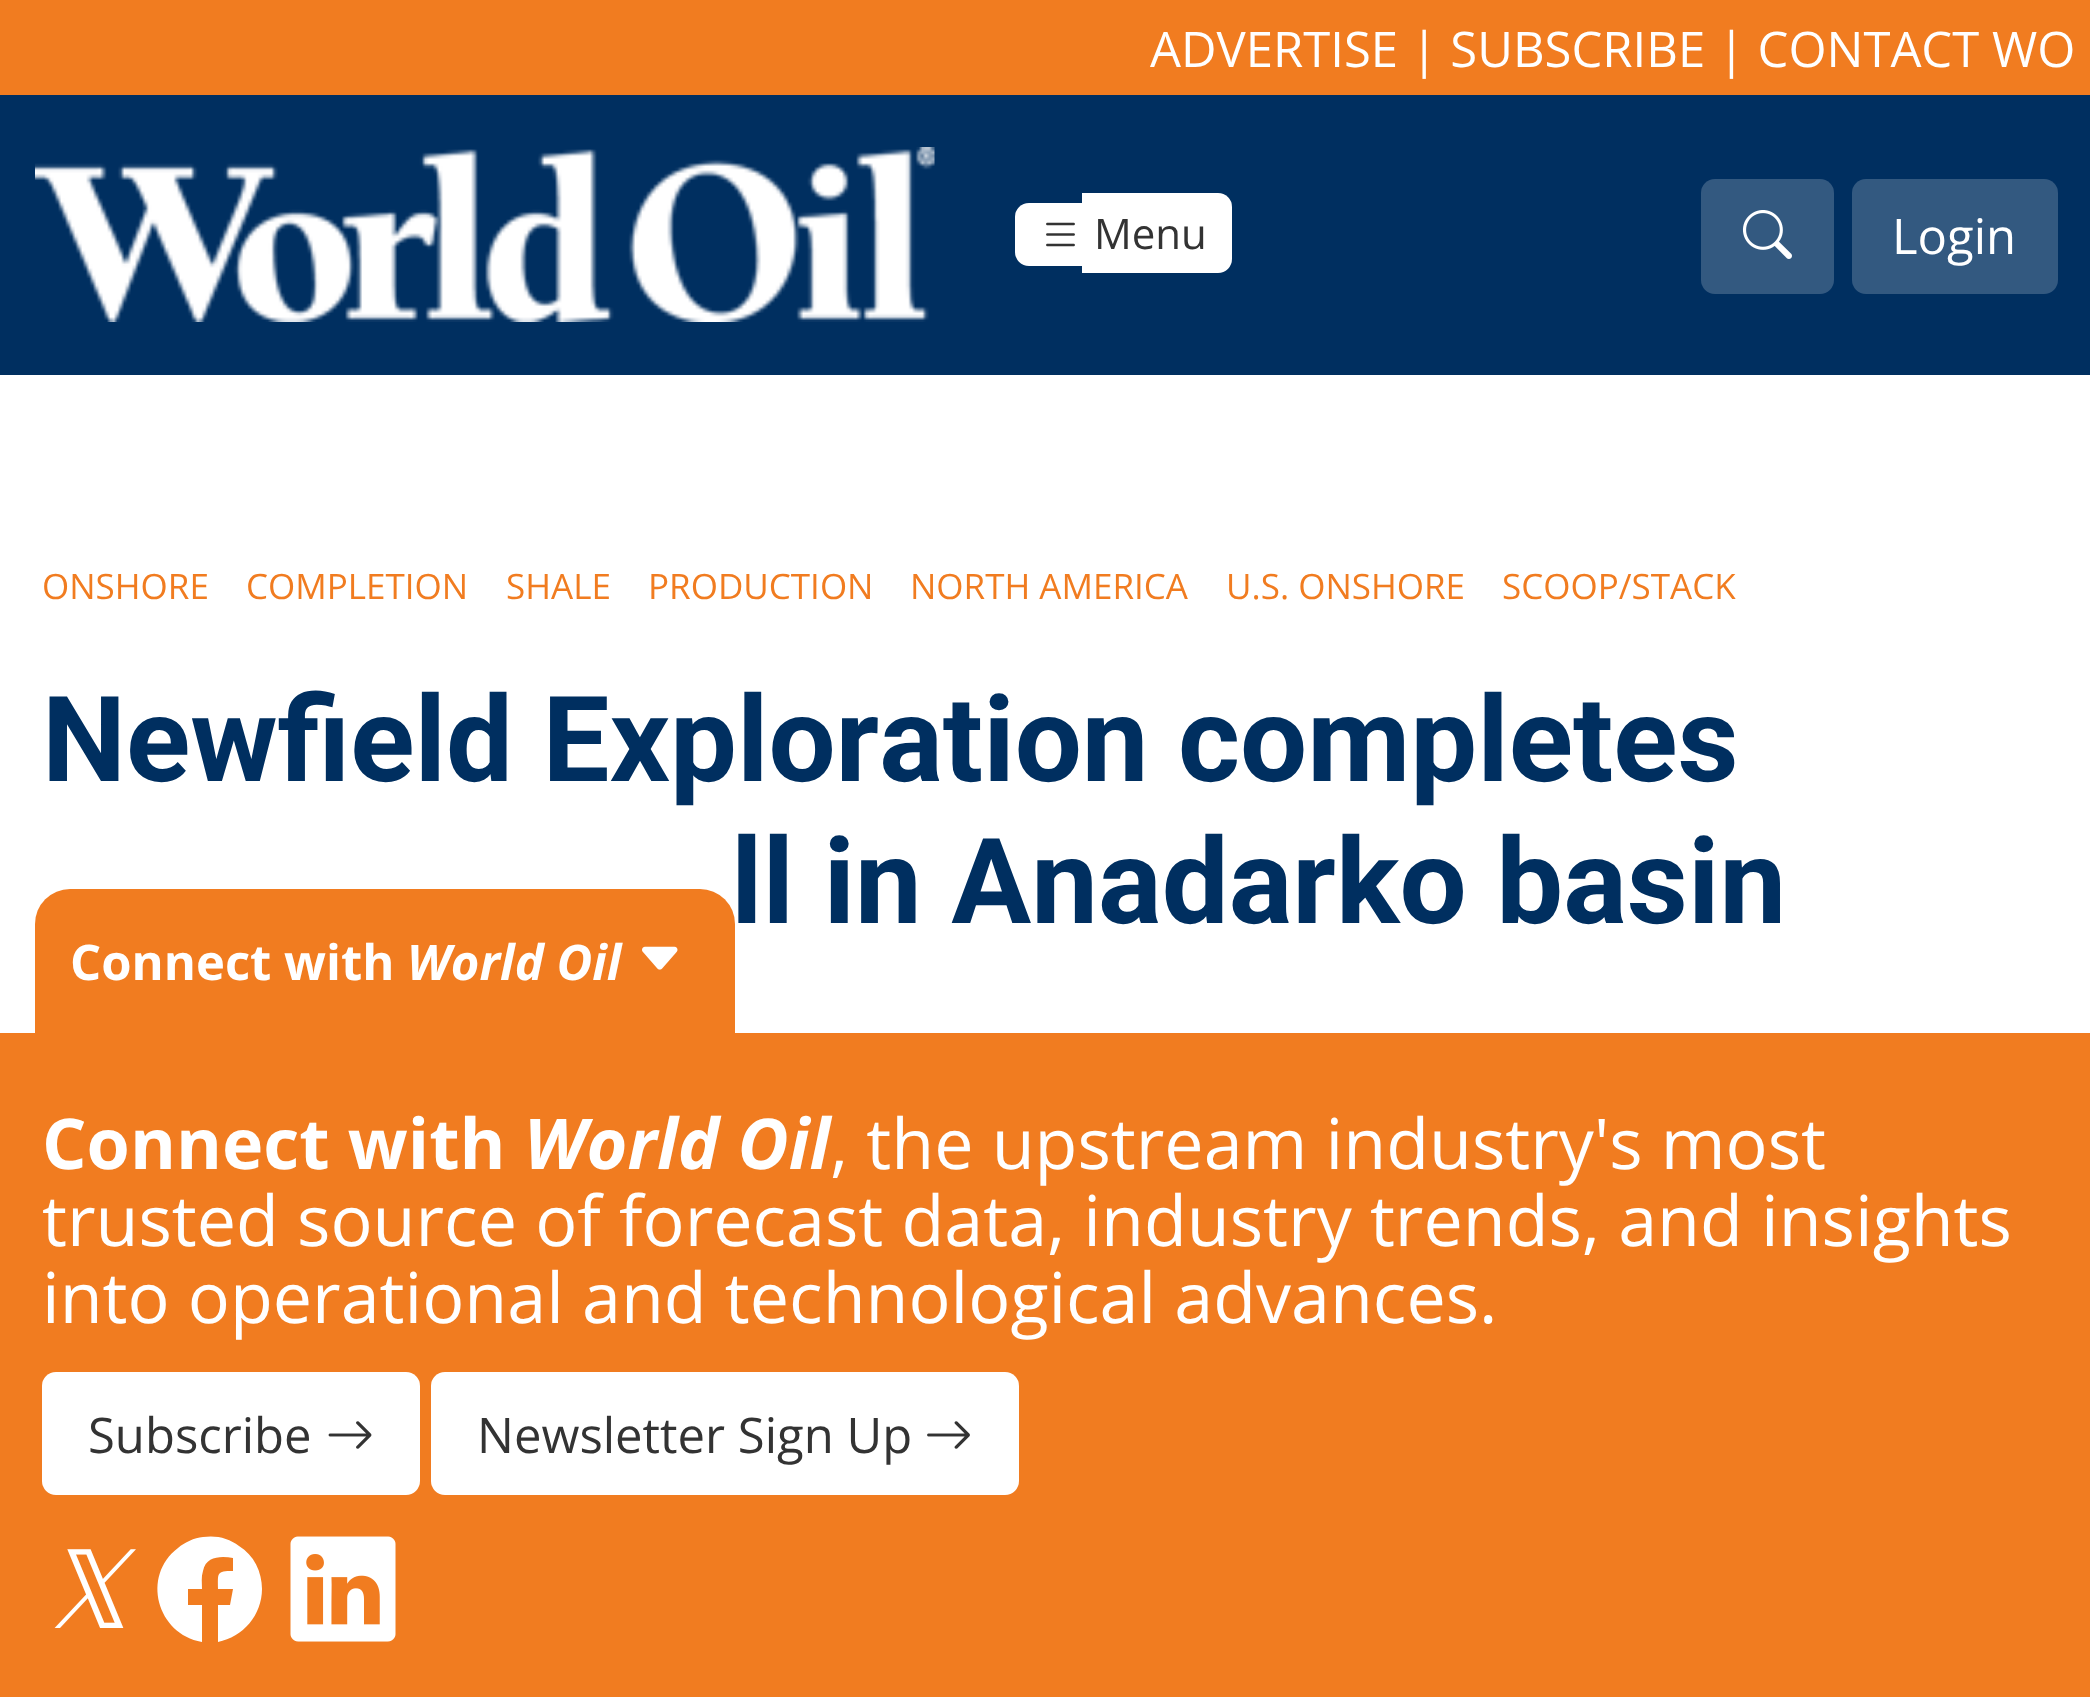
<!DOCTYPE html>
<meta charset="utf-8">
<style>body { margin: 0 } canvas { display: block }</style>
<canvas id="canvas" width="2090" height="1697"></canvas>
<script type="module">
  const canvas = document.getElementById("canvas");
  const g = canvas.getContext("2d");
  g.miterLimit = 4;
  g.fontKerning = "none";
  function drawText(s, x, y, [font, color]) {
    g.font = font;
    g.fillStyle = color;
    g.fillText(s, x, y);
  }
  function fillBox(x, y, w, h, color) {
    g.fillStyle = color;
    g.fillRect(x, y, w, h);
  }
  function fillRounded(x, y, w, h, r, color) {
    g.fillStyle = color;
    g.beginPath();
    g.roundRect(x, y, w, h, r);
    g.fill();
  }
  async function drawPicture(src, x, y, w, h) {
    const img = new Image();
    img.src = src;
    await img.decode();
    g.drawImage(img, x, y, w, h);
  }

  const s1 = ["49px Open Sans", "#FFFFFF"];
  const s2 = ["42px Open Sans", "#333333"];
  const s3 = ["35px Open Sans", "#F17C20"];
  const s4 = ["bold 119px Roboto", "#002F60"];
  const s5 = ["bold 49px Open Sans", "#FFFFFF"];
  const s6 = ["italic bold 49px Open Sans", "#FFFFFF"];
  const s7 = ["bold 70px Open Sans", "#FFFFFF"];
  const s8 = ["italic bold 70px Open Sans", "#FFFFFF"];
  const s9 = ["70px Open Sans", "#FFFFFF"];
  const s10 = ["49px Open Sans", "#333333"];
  const s11 = ["italic 108px DejaVu Sans", "#FFFFFF"];

  fillBox(0, 0, 2090, 1697, "#FFFFFF");
  fillBox(0, 0, 2090, 95, "#F17C20");
  drawText("ADVERTISE | SUBSCRIBE | CONTACT WO", 1150, 67, s1);
  fillBox(0, 95, 2090, 280, "#002F60");
  await drawPicture("pic1.png", 35, 147, 900, 175);
  g.fillStyle = "#FFFFFF";
  g.beginPath();
  g.roundRect(1015, 203, 67, 63, [14, 0, 0, 14]);
  g.fill();
  g.beginPath();
  g.roundRect(1082, 193, 150, 80, [0, 14, 14, 0]);
  g.fill();
  await drawPicture("pic2.png", 1046, 222, 29, 25);
  drawText("Menu", 1094, 249, s2);
  fillRounded(1701, 179, 133, 115, 14, "#335980");
  await drawPicture("pic3.png", 1742, 210, 50, 49);
  fillRounded(1852, 179, 206, 115, 14, "#335980");
  drawText("Login", 1892, 254, s1);
  drawText("ONSHORE", 42, 599, s3);
  drawText("COMPLETION", 246, 599, s3);
  drawText("SHALE", 506, 599, s3);
  drawText("PRODUCTION", 648, 599, s3);
  drawText("NORTH AMERICA", 910, 599, s3);
  drawText("U.S. ONSHORE", 1226, 599, s3);
  drawText("SCOOP/STACK", 1502, 599, s3);
  drawText("Newfield Exploration completes", 42, 781, s4);
  drawText("ll in Anadarko basin", 731, 923, s4);
  g.fillStyle = "#F17C20";
  g.beginPath();
  g.roundRect(35, 889, 700, 144, [35, 35, 0, 0]);
  g.fill();
  drawText("Connect with", 70, 980, s5);
  drawText("World Oil", 407, 980, s6);
  await drawPicture("pic4.png", 642, 946, 36, 24);
  fillBox(0, 1033, 2090, 664, "#F17C20");
  drawText("Connect with", 42, 1169, s7);
  drawText("World Oil", 524, 1169, s8);
  drawText(", the upstream industry's most", 830, 1169, s9);
  drawText("trusted source of forecast data, industry trends, and insights", 42, 1246, s9);
  drawText("into operational and technological advances.", 42, 1323, s9);
  fillRounded(42, 1372, 378, 123, 14, "#FFFFFF");
  drawText("Subscribe", 88, 1453, s10);
  await drawPicture("pic5.png", 328, 1421, 44, 28);
  fillRounded(431, 1372, 588, 123, 14, "#FFFFFF");
  drawText("Newsletter Sign Up", 477, 1453, s10);
  await drawPicture("pic6.png", 927, 1421, 43, 28);
  drawText("𝕏", 42, 1628, s11);
  g.beginPath();
  g.moveTo(262, 1589);
  g.bezierCurveTo(262, 1572, 254, 1555, 239, 1546);
  g.bezierCurveTo(229, 1538, 216, 1535, 203, 1537);
  g.bezierCurveTo(194, 1538, 185, 1542, 178, 1548);
  g.bezierCurveTo(141, 1576, 157, 1634, 202, 1642);
  g.lineTo(202, 1605);
  g.lineTo(188, 1605);
  g.lineTo(188, 1589);
  g.lineTo(202, 1589);
  g.bezierCurveTo(202, 1583, 201, 1577, 203, 1571);
  g.bezierCurveTo(206, 1556, 221, 1556, 233, 1558);
  g.lineTo(233, 1571);
  g.bezierCurveTo(216, 1571, 218, 1573, 218, 1589);
  g.lineTo(233, 1589);
  g.lineTo(230, 1605);
  g.lineTo(218, 1605);
  g.lineTo(218, 1642);
  g.bezierCurveTo(243, 1637, 262, 1615, 262, 1589);
  g.closePath();
  g.fill();
  await drawPicture("pic7.png", 290, 1536, 106, 106);
</script>
